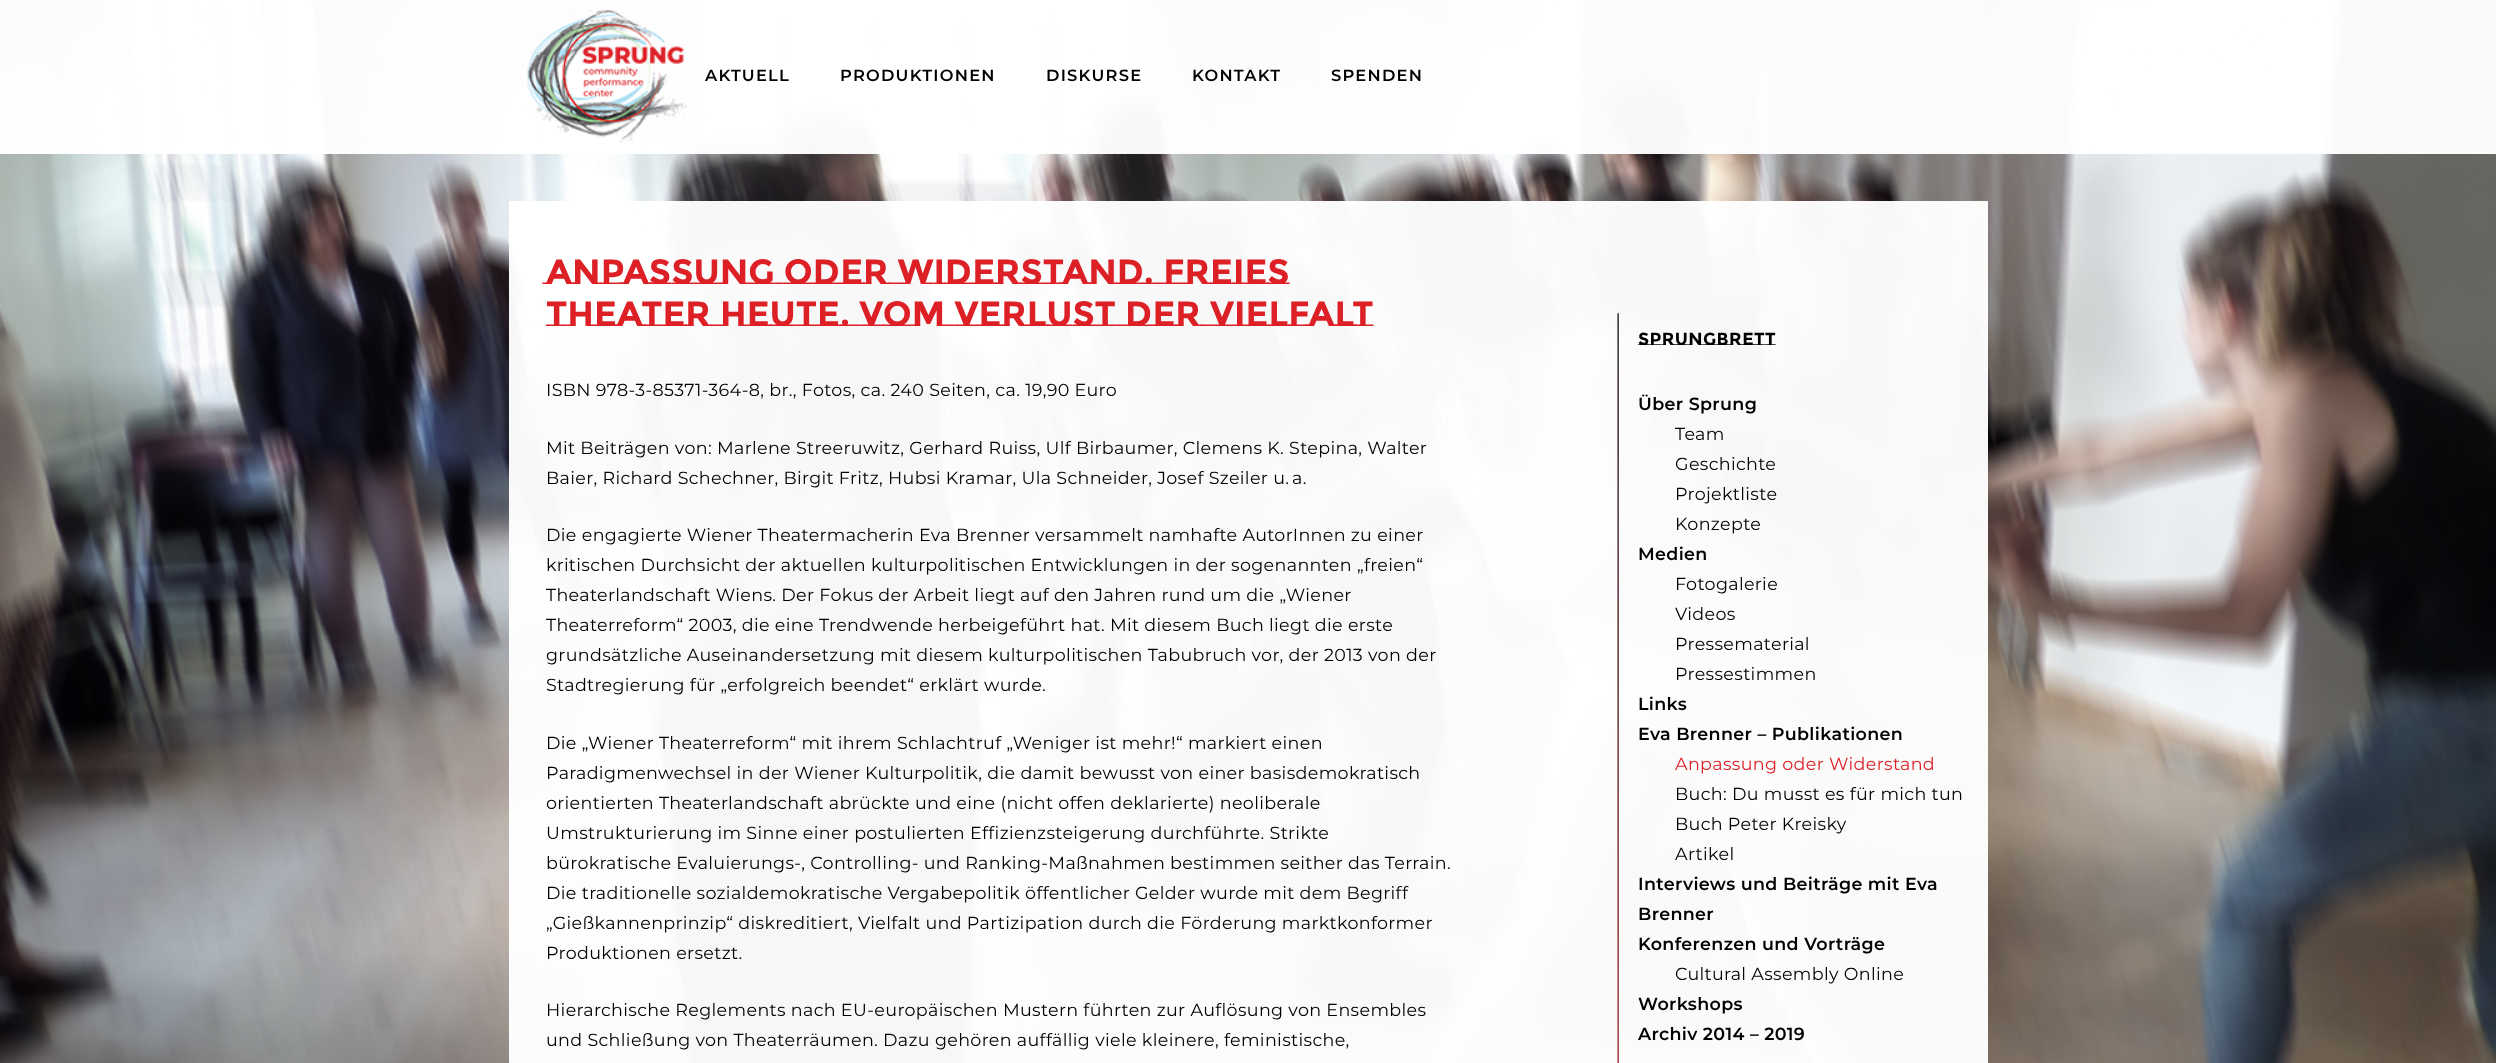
<!DOCTYPE html>
<meta charset="utf-8">
<style>body { margin: 0 } canvas { display: block }</style>
<canvas id="canvas" width="2496" height="1063"></canvas>
<script type="module">
  const canvas = document.getElementById("canvas");
  const g = canvas.getContext("2d");
  g.miterLimit = 4;
  g.fontKerning = "normal";
  function drawText(s, x, y, [font, color]) {
    g.font = font;
    g.fillStyle = color;
    g.fillText(s, x, y);
  }
  function fillBox(x, y, w, h, color) {
    g.fillStyle = color;
    g.fillRect(x, y, w, h);
  }
  async function drawPicture(src, x, y, w, h) {
    const img = new Image();
    img.src = src;
    await img.decode();
    g.drawImage(img, x, y, w, h);
  }

  const s1 = ["600 16.25px Montserrat", "#000000"];
  const s2 = ["bold 35px Montserrat Subrayada", "#DD1F26"];
  const s3 = ["17.5px Montserrat", "#000000"];
  const s4 = ["bold 17.5px Montserrat Subrayada", "#000000"];
  const s5 = ["600 17.5px Montserrat", "#000000"];
  const s6 = ["17.5px Montserrat", "#DD1F26"];

  fillBox(0, 0, 2496, 1063, "#FFFFFF");
  await drawPicture("pic1.png", 0, 0, 2496, 1063);
  fillBox(0, 0, 2496, 154, "rgba(255, 255, 255, 0.97)");
  await drawPicture("pic2.png", 527, 9, 160, 134);
  g.letterSpacing = "1.25px";
  drawText("AKTUELL", 705, 81, s1);
  drawText("PRODUKTIONEN", 840, 81, s1);
  drawText("DISKURSE", 1046, 81, s1);
  drawText("KONTAKT", 1192, 81, s1);
  drawText("SPENDEN", 1331, 81, s1);
  fillBox(509, 201, 1479, 862, "rgba(255, 255, 255, 0.97)");
  g.letterSpacing = "0px";
  drawText("ANPASSUNG ODER WIDERSTAND. FREIES", 546, 284, s2);
  drawText("THEATER HEUTE. VOM VERLUST DER VIELFALT", 546, 326, s2);
  g.letterSpacing = "0.35px";
  drawText("ISBN 978-3-85371-364-8, br., Fotos, ca. 240 Seiten, ca. 19,90 Euro", 546, 396, s3);
  drawText("Mit Beiträgen von: Marlene Streeruwitz, Gerhard Ruiss, Ulf Birbaumer, Clemens K. Stepina, Walter", 546, 454, s3);
  drawText("Baier, Richard Schechner, Birgit Fritz, Hubsi Kramar, Ula Schneider, Josef Szeiler u. a.", 546, 484, s3);
  drawText("Die engagierte Wiener Theatermacherin Eva Brenner versammelt namhafte AutorInnen zu einer", 546, 541, s3);
  drawText("kritischen Durchsicht der aktuellen kulturpolitischen Entwicklungen in der sogenannten „freien“", 546, 571, s3);
  drawText("Theaterlandschaft Wiens. Der Fokus der Arbeit liegt auf den Jahren rund um die „Wiener", 546, 601, s3);
  drawText("Theaterreform“ 2003, die eine Trendwende herbeigeführt hat. Mit diesem Buch liegt die erste", 546, 631, s3);
  drawText("grundsätzliche Auseinandersetzung mit diesem kulturpolitischen Tabubruch vor, der 2013 von der", 546, 661, s3);
  drawText("Stadtregierung für „erfolgreich beendet“ erklärt wurde.", 546, 691, s3);
  drawText("Die „Wiener Theaterreform“ mit ihrem Schlachtruf „Weniger ist mehr!“ markiert einen", 546, 749, s3);
  drawText("Paradigmenwechsel in der Wiener Kulturpolitik, die damit bewusst von einer basisdemokratisch", 546, 779, s3);
  drawText("orientierten Theaterlandschaft abrückte und eine (nicht offen deklarierte) neoliberale", 546, 809, s3);
  drawText("Umstrukturierung im Sinne einer postulierten Effizienzsteigerung durchführte. Strikte", 546, 839, s3);
  drawText("bürokratische Evaluierungs-, Controlling- und Ranking-Maßnahmen bestimmen seither das Terrain.", 546, 869, s3);
  drawText("Die traditionelle sozialdemokratische Vergabepolitik öffentlicher Gelder wurde mit dem Begriff", 546, 899, s3);
  drawText("„Gießkannenprinzip“ diskreditiert, Vielfalt und Partizipation durch die Förderung marktkonformer", 546, 929, s3);
  drawText("Produktionen ersetzt.", 546, 959, s3);
  drawText("Hierarchische Reglements nach EU-europäischen Mustern führten zur Auflösung von Ensembles", 546, 1016, s3);
  drawText("und Schließung von Theaterräumen. Dazu gehören auffällig viele kleinere, feministische,", 546, 1046, s3);
  await drawPicture("pic3.png", 1617, 313, 2, 750);
  drawText("Sprungbrett", 1638, 345, s4);
  drawText("Über Sprung", 1638, 410, s5);
  drawText("Team", 1675, 440, s3);
  drawText("Geschichte", 1675, 470, s3);
  drawText("Projektliste", 1675, 500, s3);
  drawText("Konzepte", 1675, 530, s3);
  drawText("Medien", 1638, 560, s5);
  drawText("Fotogalerie", 1675, 590, s3);
  drawText("Videos", 1675, 620, s3);
  drawText("Pressematerial", 1675, 650, s3);
  drawText("Pressestimmen", 1675, 680, s3);
  drawText("Links", 1638, 710, s5);
  drawText("Eva Brenner – Publikationen", 1638, 740, s5);
  drawText("Anpassung oder Widerstand", 1675, 770, s6);
  drawText("Buch: Du musst es für mich tun", 1675, 800, s3);
  drawText("Buch Peter Kreisky", 1675, 830, s3);
  drawText("Artikel", 1675, 860, s3);
  drawText("Interviews und Beiträge mit Eva", 1638, 890, s5);
  drawText("Brenner", 1638, 920, s5);
  drawText("Konferenzen und Vorträge", 1638, 950, s5);
  drawText("Cultural Assembly Online", 1675, 980, s3);
  drawText("Workshops", 1638, 1010, s5);
  drawText("Archiv 2014 – 2019", 1638, 1040, s5);
</script>
